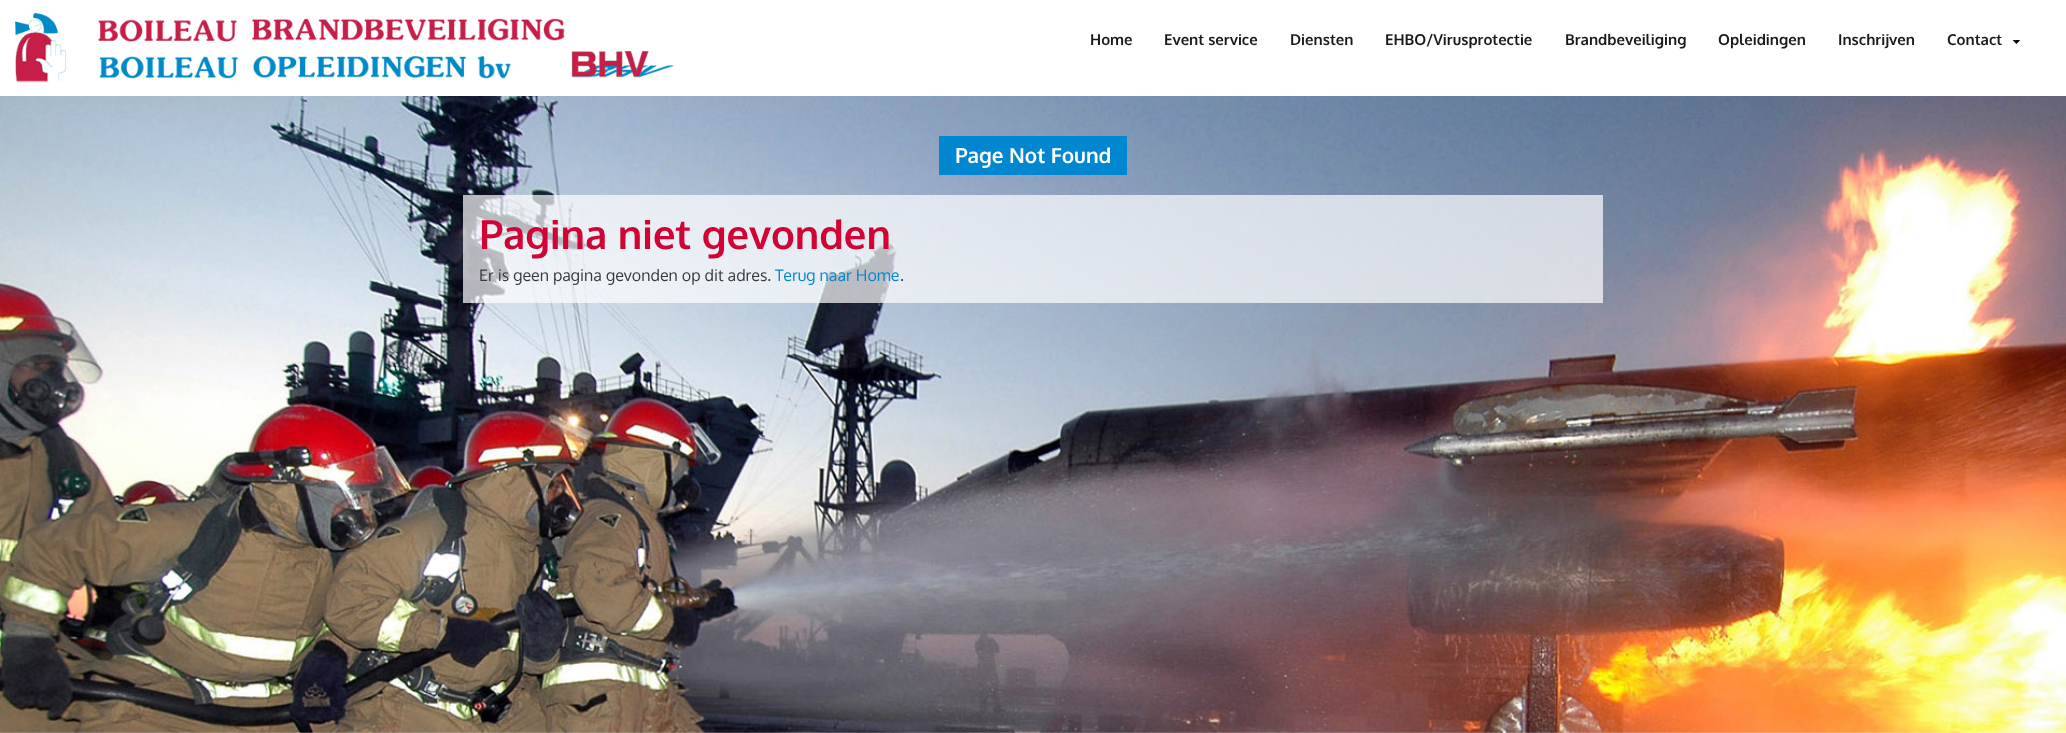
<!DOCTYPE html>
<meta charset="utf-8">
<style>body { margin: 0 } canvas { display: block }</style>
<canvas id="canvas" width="2066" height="733"></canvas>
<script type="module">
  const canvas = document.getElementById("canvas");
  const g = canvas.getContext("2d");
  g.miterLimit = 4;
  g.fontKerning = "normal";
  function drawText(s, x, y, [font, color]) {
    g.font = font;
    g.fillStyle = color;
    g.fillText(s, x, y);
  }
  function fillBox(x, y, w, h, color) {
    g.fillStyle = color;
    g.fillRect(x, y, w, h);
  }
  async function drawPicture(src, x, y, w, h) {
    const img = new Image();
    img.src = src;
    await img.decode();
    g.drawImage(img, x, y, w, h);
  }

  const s1 = ["bold 15px Oxygen", "#1A1A1A"];
  const s2 = ["bold 20.75px Oxygen", "#FFFFFF"];
  const s3 = ["bold 40px Oxygen", "#D10334"];
  const s4 = ["16px Oxygen", "#373A3C"];
  const s5 = ["16px Oxygen", "#0187D0"];

  fillBox(0, 0, 2066, 733, "#FFFFFF");
  await drawPicture("pic1.png", 0, 96, 2066, 637);
  await drawPicture("pic2.png", 15, 13, 659, 70);
  drawText("Home", 1090, 45, s1);
  drawText("Event service", 1164, 45, s1);
  drawText("Diensten", 1290, 45, s1);
  drawText("EHBO/Virusprotectie", 1385, 45, s1);
  drawText("Brandbeveiliging", 1565, 45, s1);
  drawText("Opleidingen", 1718, 45, s1);
  drawText("Inschrijven", 1838, 45, s1);
  drawText("Contact", 1947, 45, s1);
  await drawPicture("pic3.png", 2013, 40, 7, 4);
  fillBox(939, 136, 188, 39, "#0187D0");
  drawText("Page Not Found", 955, 163, s2);
  fillBox(463, 195, 1140, 108, "rgba(255, 255, 255, 0.7)");
  drawText("Pagina niet gevonden", 479, 249, s3);
  drawText("Er is geen pagina gevonden op dit adres.", 479, 281, s4);
  drawText("Terug naar Home", 775, 281, s5);
  drawText(".", 900, 281, s4);
</script>
